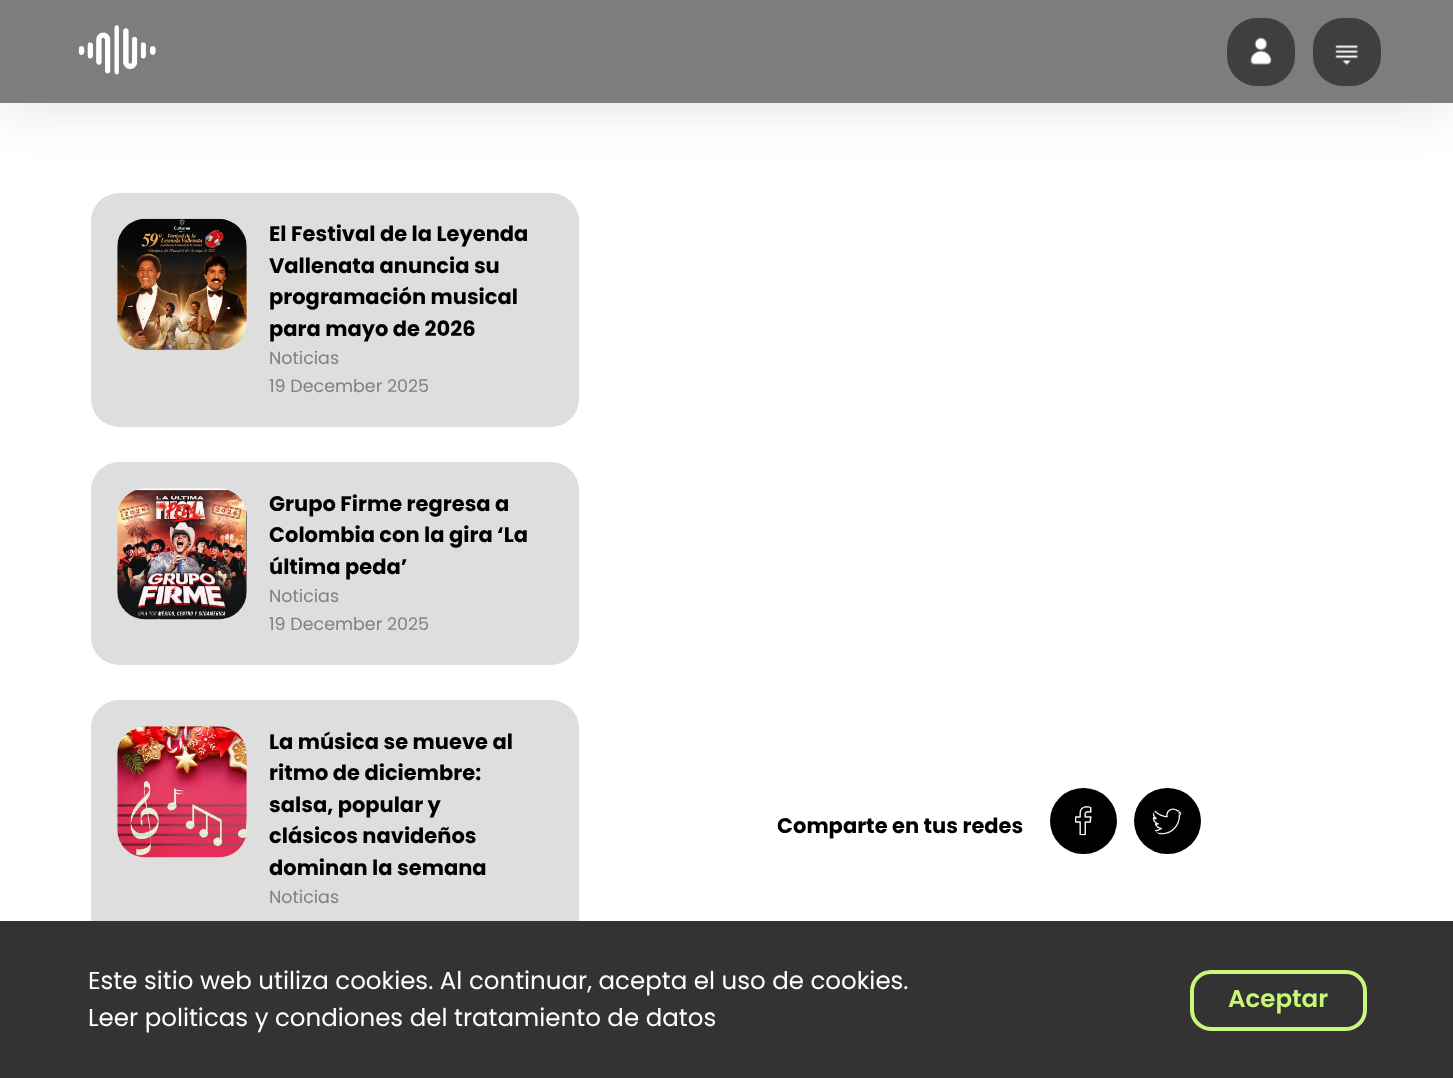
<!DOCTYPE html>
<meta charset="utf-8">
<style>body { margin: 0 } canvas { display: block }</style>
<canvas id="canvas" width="1453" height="1078"></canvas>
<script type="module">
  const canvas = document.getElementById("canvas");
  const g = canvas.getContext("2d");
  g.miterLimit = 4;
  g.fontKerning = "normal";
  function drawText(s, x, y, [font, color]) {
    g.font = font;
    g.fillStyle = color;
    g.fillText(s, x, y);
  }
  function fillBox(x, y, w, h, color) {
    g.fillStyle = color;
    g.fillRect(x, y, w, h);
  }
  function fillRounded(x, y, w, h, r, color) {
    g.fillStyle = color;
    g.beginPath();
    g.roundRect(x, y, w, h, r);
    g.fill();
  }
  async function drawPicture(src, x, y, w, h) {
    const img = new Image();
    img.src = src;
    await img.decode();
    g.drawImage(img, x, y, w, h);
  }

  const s1 = ["bold 21px Poppins", "#000000"];
  const s2 = ["17.5px Poppins", "#808080"];
  const s3 = ["24.5px Poppins", "#FFFFFF"];
  const s4 = ["600 24.5px Poppins", "#C7F879"];

  fillBox(0, 0, 1453, 1078, "#FFFFFF");
  g.fillStyle = "rgba(0, 0, 0, 0.1)";
  g.filter = "blur(26px)";
  g.beginPath();
  g.rect(0, 7, 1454, 103);
  g.fill();
  g.filter = "none";
  fillBox(0, 0, 1453, 103, "#7D7D7D");
  await drawPicture("pic1.png", 78, 25, 78, 50);
  fillRounded(1227, 18, 68, 68, 30, "#3F3F3F");
  await drawPicture("pic2.png", 1250, 37, 22, 28);
  fillRounded(1313, 18, 68, 68, 30, "#3F3F3F");
  await drawPicture("pic3.png", 1335, 45, 23, 20);
  fillRounded(91, 193, 488, 234, 28, "#DEDEDE");
  await drawPicture("pic4.png", 117, 218, 130, 132);
  drawText("El Festival de la Leyenda", 269, 241, s1);
  drawText("Vallenata anuncia su", 269, 273, s1);
  drawText("programación musical", 269, 304, s1);
  drawText("para mayo de 2026", 269, 336, s1);
  drawText("Noticias", 269, 364, s2);
  drawText("19 December 2025", 269, 392, s2);
  fillRounded(91, 462, 488, 203, 28, "#DEDEDE");
  await drawPicture("pic5.png", 117, 488, 130, 132);
  drawText("Grupo Firme regresa a", 269, 511, s1);
  drawText("Colombia con la gira ‘La", 269, 542, s1);
  drawText("última peda’", 269, 574, s1);
  drawText("Noticias", 269, 602, s2);
  drawText("19 December 2025", 269, 630, s2);
  fillRounded(91, 700, 488, 266, 28, "#DEDEDE");
  await drawPicture("pic6.png", 117, 726, 130, 132);
  drawText("La música se mueve al", 269, 749, s1);
  drawText("ritmo de diciembre:", 269, 780, s1);
  drawText("salsa, popular y", 269, 812, s1);
  drawText("clásicos navideños", 269, 843, s1);
  drawText("dominan la semana", 269, 875, s1);
  drawText("Noticias", 269, 903, s2);
  drawText("Comparte en tus redes", 777, 833, s1);
  fillRounded(1050, 788, 67, 66, 33, "#000000");
  await drawPicture("pic7.png", 1075, 806, 17, 30);
  fillRounded(1134, 788, 67, 66, 33, "#000000");
  await drawPicture("pic8.png", 1152, 808, 30, 27);
  fillBox(0, 921, 1453, 157, "#333333");
  drawText("Este sitio web utiliza cookies. Al continuar, acepta el uso de cookies.", 88, 989, s3);
  drawText("Leer politicas y condiones del tratamiento de datos", 88, 1026, s3);
  g.beginPath();
  g.roundRect(1192, 972, 173, 57, 19);
  g.strokeStyle = "#C7F879";
  g.lineWidth = 4;
  g.stroke();
  drawText("Aceptar", 1228, 1007, s4);
</script>
